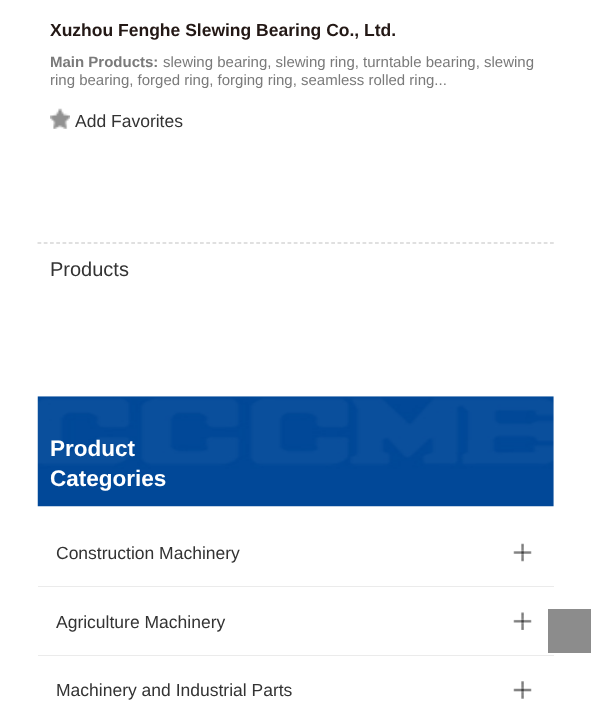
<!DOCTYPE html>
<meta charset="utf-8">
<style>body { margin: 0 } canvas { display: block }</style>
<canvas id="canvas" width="591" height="715"></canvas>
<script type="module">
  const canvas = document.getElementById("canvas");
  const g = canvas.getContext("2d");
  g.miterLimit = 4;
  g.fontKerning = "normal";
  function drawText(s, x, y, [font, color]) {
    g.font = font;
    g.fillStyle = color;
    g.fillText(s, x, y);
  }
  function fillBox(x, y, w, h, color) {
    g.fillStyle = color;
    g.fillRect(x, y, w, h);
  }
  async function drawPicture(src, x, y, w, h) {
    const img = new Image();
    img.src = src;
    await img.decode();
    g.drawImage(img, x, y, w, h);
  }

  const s1 = ["bold 17.5px Liberation Sans", "#231815"];
  const s2 = ["bold 15px Liberation Sans", "#7A7A7A"];
  const s3 = ["15px Liberation Sans", "#7A7A7A"];
  const s4 = ["17.5px Liberation Sans", "#333333"];
  const s5 = ["20px Liberation Sans", "#333333"];
  const s6 = ["bold 22.5px Liberation Sans", "#FFFFFF"];

  fillBox(0, 0, 591, 715, "#FFFFFF");
  drawText("Xuzhou Fenghe Slewing Bearing Co., Ltd.", 50, 36, s1);
  drawText("Main Products:", 50, 67, s2);
  drawText("slewing bearing, slewing ring, turntable bearing, slewing", 163, 67, s3);
  drawText("ring bearing, forged ring, forging ring, seamless rolled ring...", 50, 85, s3);
  await drawPicture("pic1.png", 50, 108, 20, 21);
  drawText("Add Favorites", 75, 127, s4);
  g.beginPath();
  g.moveTo(37.5, 243);
  g.lineTo(554, 243);
  g.strokeStyle = "#C1C1C1";
  g.lineWidth = 1.2;
  g.setLineDash([3.75, 2.5]);
  g.stroke();
  drawText("Products", 50, 276, s5);
  await drawPicture("pic2.png", 37, 396, 517, 111);
  drawText("Product", 50, 456, s6);
  drawText("Categories", 50, 486, s6);
  fillBox(38, 586, 516, 1, "#EBEBEB");
  drawText("Construction Machinery", 56, 559, s4);
  await drawPicture("pic3.png", 513, 543, 19, 19);
  fillBox(38, 655, 516, 1, "#EBEBEB");
  drawText("Agriculture Machinery", 56, 628, s4);
  await drawPicture("pic4.png", 513, 612, 19, 18);
  drawText("Machinery and Industrial Parts", 56, 696, s4);
  await drawPicture("pic5.png", 513, 681, 19, 18);
  fillBox(548, 609, 43, 44, "#8C8C8C");
</script>
